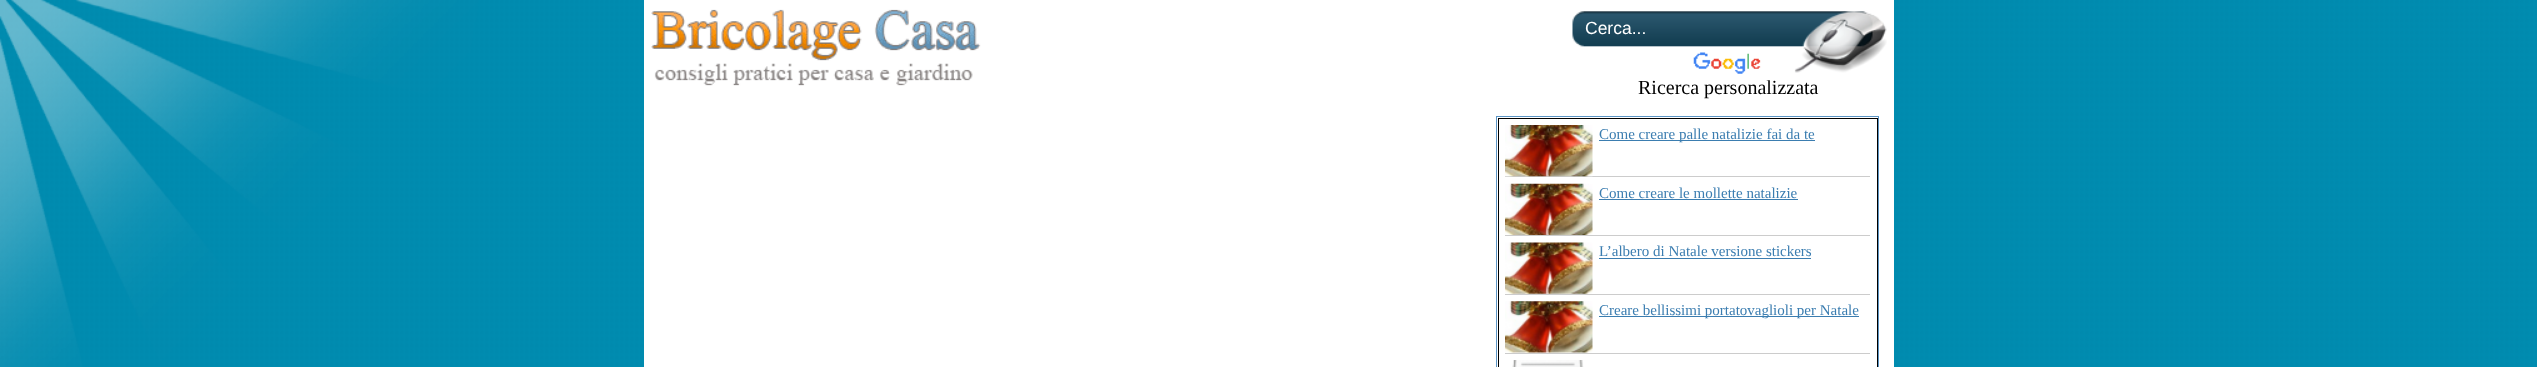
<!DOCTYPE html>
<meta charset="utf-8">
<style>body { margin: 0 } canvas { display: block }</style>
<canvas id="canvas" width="2537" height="367"></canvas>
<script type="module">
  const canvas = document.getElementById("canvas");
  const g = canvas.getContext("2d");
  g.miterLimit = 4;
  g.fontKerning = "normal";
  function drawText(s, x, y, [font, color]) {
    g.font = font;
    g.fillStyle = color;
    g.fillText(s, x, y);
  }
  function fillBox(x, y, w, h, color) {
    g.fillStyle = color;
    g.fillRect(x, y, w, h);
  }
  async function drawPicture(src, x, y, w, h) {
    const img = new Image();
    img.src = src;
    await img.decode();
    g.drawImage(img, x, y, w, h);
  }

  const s1 = ["17.5px Liberation Sans", "#FFFFFF"];
  const s2 = ["20px Liberation Serif", "#000000"];
  const s3 = ["15px Liberation Serif", "#3B7DB0"];

  fillBox(0, 0, 2537, 367, "#FFFFFF");
  await drawPicture("pic1.png", 0, 0, 2537, 367);
  fillBox(644, 0, 1250, 367, "#FFFFFF");
  await drawPicture("pic2.png", 651, 9, 330, 77);
  await drawPicture("pic3.png", 1572, 11, 315, 62);
  drawText("Cerca...", 1585, 34, s1);
  await drawPicture("pic4.png", 1693, 52, 68, 22);
  drawText("Ricerca personalizzata", 1638, 94, s2);
  g.strokeStyle = "#5B94C4";
  g.strokeRect(1496.5, 116.5, 382, 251);
  g.strokeStyle = "#000000";
  g.strokeRect(1498.5, 118.5, 379, 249);
  fillBox(1505, 176, 365, 1, "#CCCCCC");
  await drawPicture("pic5.png", 1505, 125, 88, 52);
  fillBox(1599, 140, 216, 1, "#3B7DB0");
  drawText("Come creare palle natalizie fai da te", 1599, 139, s3);
  fillBox(1505, 235, 365, 1, "#CCCCCC");
  await drawPicture("pic6.png", 1505, 183, 88, 52);
  drawText("Come creare le mollette natalizie", 1599, 198, s3);
  fillBox(1599, 199, 199, 1, "#3B7DB0");
  fillBox(1505, 294, 365, 1, "#CCCCCC");
  await drawPicture("pic7.png", 1505, 242, 88, 52);
  drawText("L’albero di Natale versione stickers", 1599, 256, s3);
  fillBox(1599, 258, 212, 1, "#3B7DB0");
  fillBox(1505, 353, 365, 1, "#CCCCCC");
  await drawPicture("pic8.png", 1505, 301, 88, 52);
  fillBox(1599, 316, 260, 1, "#3B7DB0");
  drawText("Creare bellissimi portatovaglioli per Natale", 1599, 315, s3);
  await drawPicture("pic9.png", 1512, 360, 72, 7);
</script>
